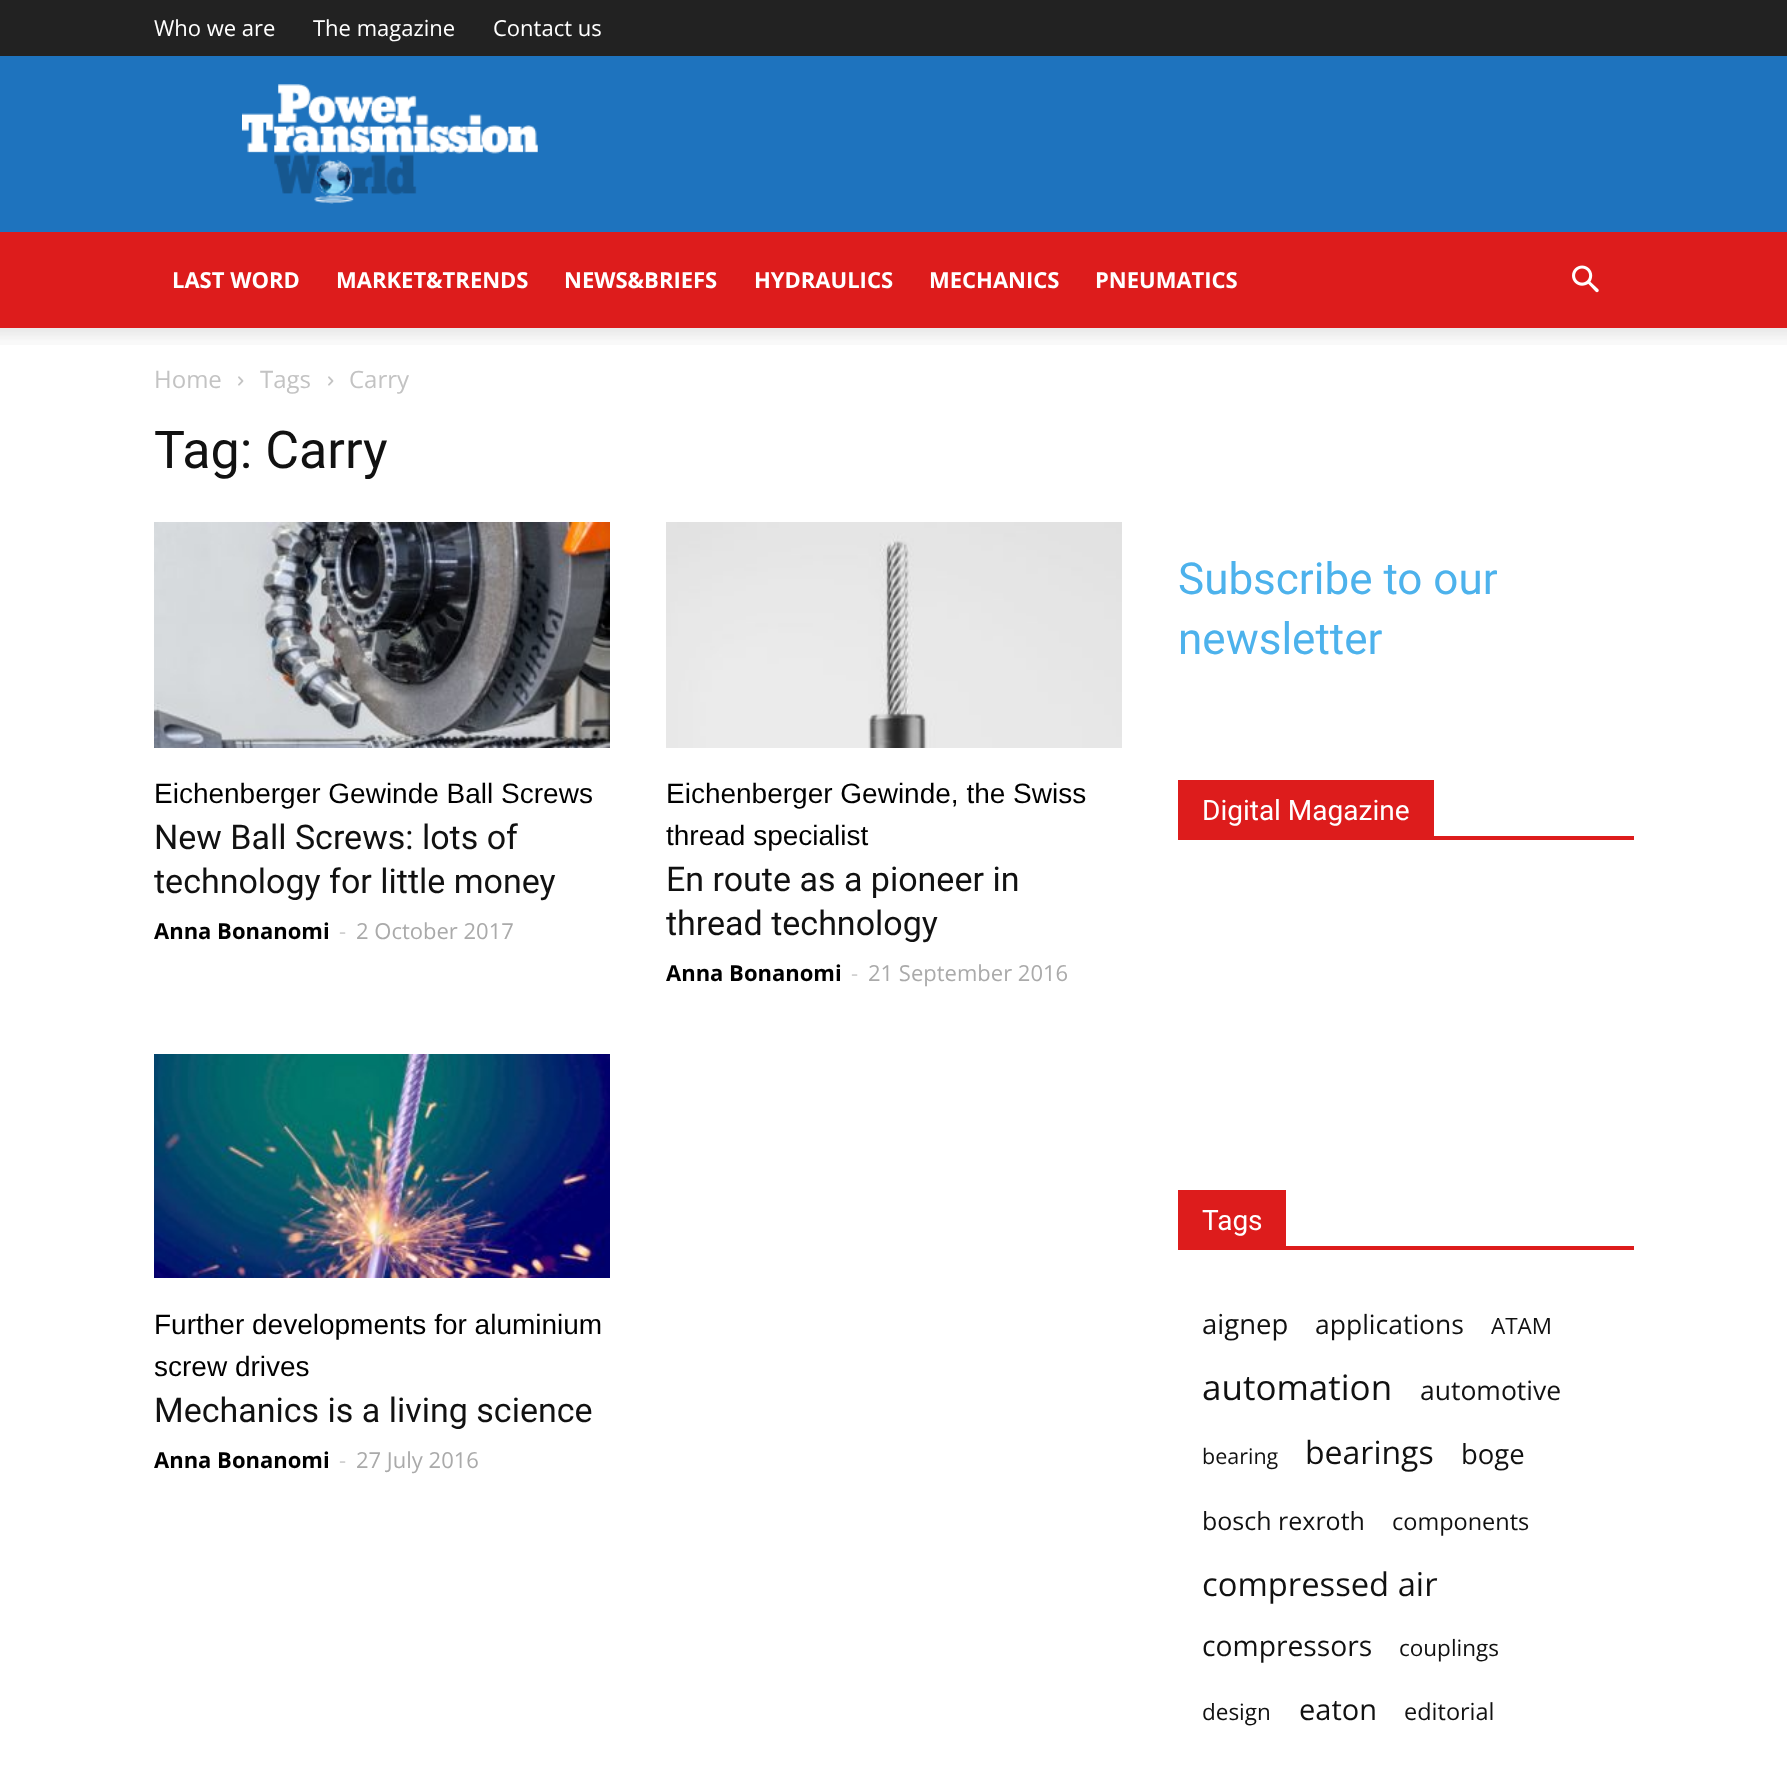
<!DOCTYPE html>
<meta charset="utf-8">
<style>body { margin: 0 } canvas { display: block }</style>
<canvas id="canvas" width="1787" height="1776"></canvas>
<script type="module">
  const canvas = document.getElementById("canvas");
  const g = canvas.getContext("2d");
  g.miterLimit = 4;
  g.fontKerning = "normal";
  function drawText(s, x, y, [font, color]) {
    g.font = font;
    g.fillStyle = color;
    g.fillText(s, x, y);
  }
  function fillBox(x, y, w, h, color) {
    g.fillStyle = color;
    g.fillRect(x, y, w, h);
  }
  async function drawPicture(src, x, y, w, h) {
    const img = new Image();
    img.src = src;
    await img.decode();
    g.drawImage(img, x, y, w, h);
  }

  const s1 = ["22px Open Sans", "#FFFFFF"];
  const s2 = ["bold 22px Open Sans", "#FFFFFF"];
  const s3 = ["24px Open Sans", "#C3C3C3"];
  const s4 = ["52px Roboto", "#111111"];
  const s5 = ["28px Liberation Sans", "#000000"];
  const s6 = ["34px Roboto", "#111111"];
  const s7 = ["bold 22px Open Sans", "#000000"];
  const s8 = ["22px Open Sans", "#CCCCCC"];
  const s9 = ["22px Open Sans", "#AAAAAA"];
  const s10 = ["44px Roboto", "#4DB2EC"];
  const s11 = ["28px Roboto", "#FFFFFF"];
  const s12 = ["27.5px Open Sans", "#111111"];
  const s13 = ["26.5px Open Sans", "#111111"];
  const s14 = ["22.5px Open Sans", "#111111"];
  const s15 = ["35px Open Sans", "#111111"];
  const s16 = ["21.5px Open Sans", "#111111"];
  const s17 = ["32px Open Sans", "#111111"];
  const s18 = ["25px Open Sans", "#111111"];
  const s19 = ["23.5px Open Sans", "#111111"];
  const s20 = ["32.75px Open Sans", "#111111"];
  const s21 = ["28.25px Open Sans", "#111111"];
  const s22 = ["29px Open Sans", "#111111"];

  fillBox(0, 0, 1787, 1776, "#FFFFFF");
  fillBox(0, 0, 1787, 56, "#222222");
  drawText("Who we are", 154, 36, s1);
  drawText("The magazine", 313, 36, s1);
  drawText("Contact us", 493, 36, s1);
  fillBox(0, 56, 1787, 176, "#1E73BE");
  await drawPicture("pic1.png", 242, 84, 296, 120);
  fillBox(0, 232, 1787, 96, "#DD1C1C");
  drawText("LAST WORD", 172, 288, s2);
  drawText("MARKET&TRENDS", 336, 288, s2);
  drawText("NEWS&BRIEFS", 564, 288, s2);
  drawText("HYDRAULICS", 754, 288, s2);
  drawText("MECHANICS", 929, 288, s2);
  drawText("PNEUMATICS", 1095, 288, s2);
  await drawPicture("pic2.png", 1572, 265, 27, 28);
  await drawPicture("pic3.png", 0, 328, 1787, 17);
  drawText("Home", 154, 388, s3);
  await drawPicture("pic4.png", 238, 376, 6, 10);
  drawText("Tags", 260, 388, s3);
  await drawPicture("pic4.png", 328, 376, 6, 10);
  drawText("Carry", 349, 388, s3);
  drawText("Tag: Carry", 154, 468, s4);
  await drawPicture("pic5.png", 154, 522, 456, 226);
  drawText("Eichenberger Gewinde Ball Screws", 154, 803, s5);
  drawText("New Ball Screws: lots of", 154, 849, s6);
  drawText("technology for little money", 154, 893, s6);
  drawText("Anna Bonanomi", 154, 939, s7);
  drawText("-", 339, 939, s8);
  drawText("2 October 2017", 356, 939, s9);
  await drawPicture("pic6.png", 666, 522, 456, 226);
  drawText("Eichenberger Gewinde, the Swiss", 666, 803, s5);
  drawText("thread specialist", 666, 845, s5);
  drawText("En route as a pioneer in", 666, 891, s6);
  drawText("thread technology", 666, 935, s6);
  drawText("Anna Bonanomi", 666, 981, s7);
  drawText("-", 851, 981, s8);
  drawText("21 September 2016", 868, 981, s9);
  await drawPicture("pic7.png", 154, 1054, 456, 224);
  drawText("Further developments for aluminium", 154, 1334, s5);
  drawText("screw drives", 154, 1376, s5);
  drawText("Mechanics is a living science", 154, 1422, s6);
  drawText("Anna Bonanomi", 154, 1468, s7);
  drawText("-", 339, 1468, s8);
  drawText("27 July 2016", 356, 1468, s9);
  drawText("Subscribe to our", 1178, 594, s10);
  drawText("newsletter", 1178, 654, s10);
  fillBox(1178, 836, 456, 4, "#DD1C1C");
  fillBox(1178, 780, 256, 56, "#DD1C1C");
  drawText("Digital Magazine", 1202, 820, s11);
  fillBox(1178, 1246, 456, 4, "#DD1C1C");
  fillBox(1178, 1190, 108, 56, "#DD1C1C");
  drawText("Tags", 1202, 1230, s11);
  drawText("aignep", 1202, 1334, s12);
  drawText("applications", 1315, 1334, s13);
  drawText("ATAM", 1491, 1334, s14);
  drawText("automation", 1202, 1400, s15);
  drawText("automotive", 1420, 1400, s13);
  drawText("bearing", 1202, 1464, s16);
  drawText("bearings", 1305, 1464, s17);
  drawText("boge", 1461, 1464, s12);
  drawText("bosch rexroth", 1202, 1530, s18);
  drawText("components", 1392, 1530, s19);
  drawText("compressed air", 1202, 1596, s20);
  drawText("compressors", 1202, 1656, s21);
  drawText("couplings", 1399, 1656, s14);
  drawText("design", 1202, 1720, s14);
  drawText("eaton", 1299, 1720, s22);
  drawText("editorial", 1404, 1720, s19);
</script>
